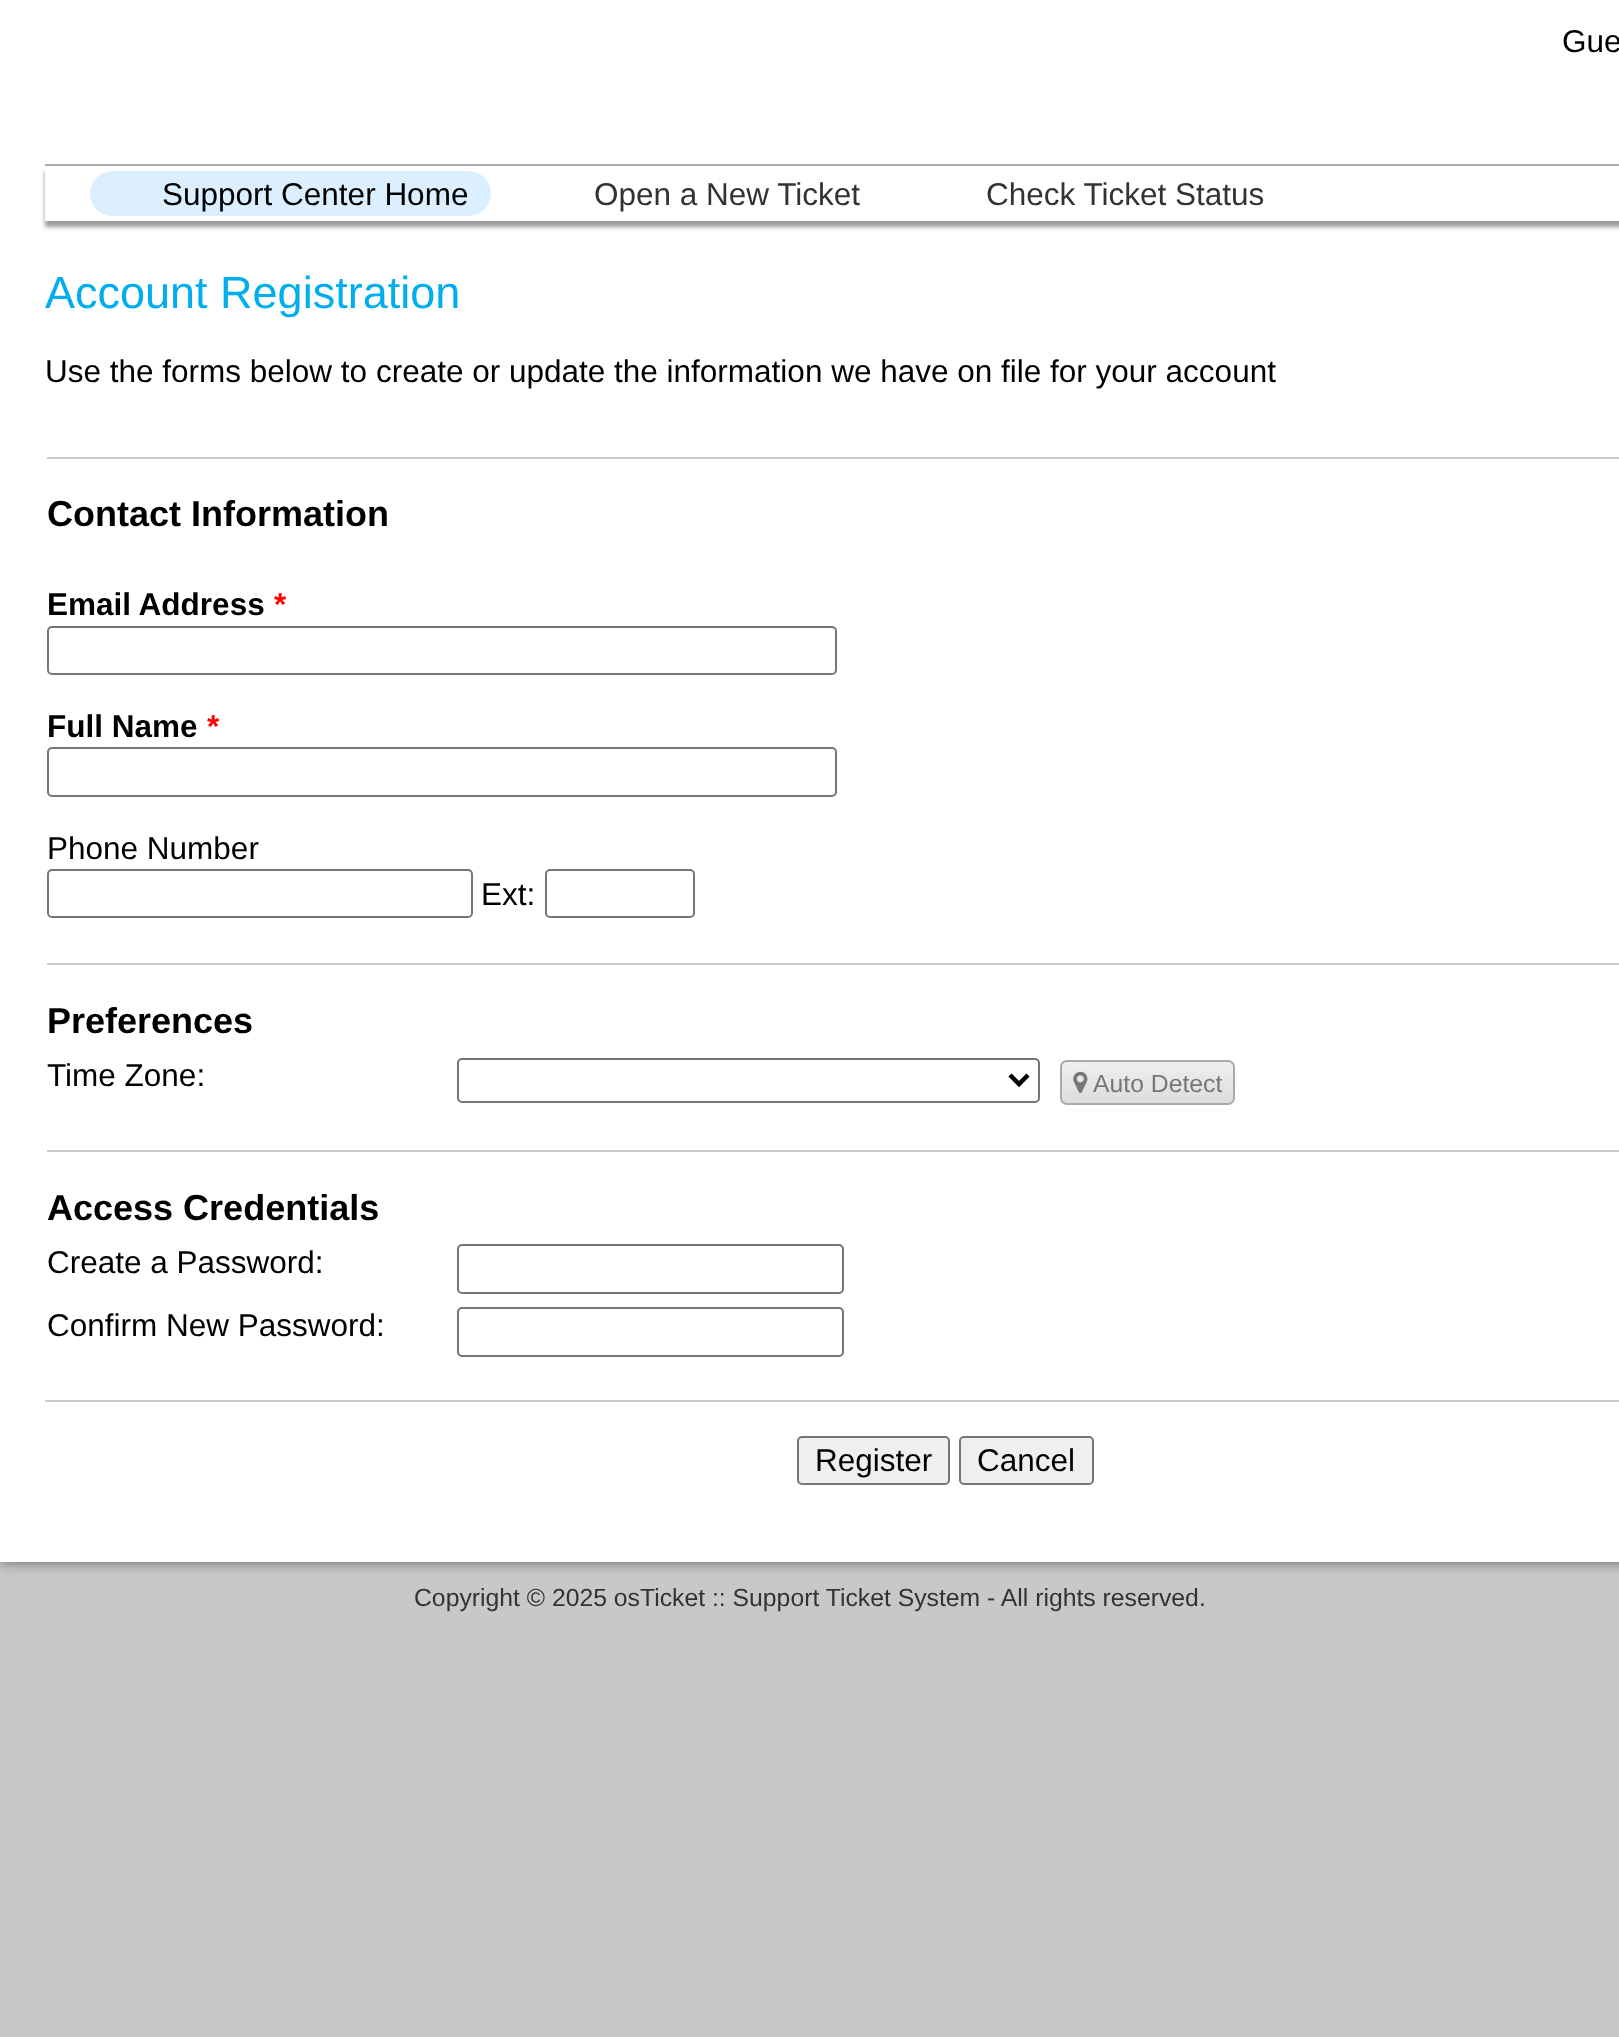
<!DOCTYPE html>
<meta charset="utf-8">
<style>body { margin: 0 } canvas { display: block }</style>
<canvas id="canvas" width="1619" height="2037"></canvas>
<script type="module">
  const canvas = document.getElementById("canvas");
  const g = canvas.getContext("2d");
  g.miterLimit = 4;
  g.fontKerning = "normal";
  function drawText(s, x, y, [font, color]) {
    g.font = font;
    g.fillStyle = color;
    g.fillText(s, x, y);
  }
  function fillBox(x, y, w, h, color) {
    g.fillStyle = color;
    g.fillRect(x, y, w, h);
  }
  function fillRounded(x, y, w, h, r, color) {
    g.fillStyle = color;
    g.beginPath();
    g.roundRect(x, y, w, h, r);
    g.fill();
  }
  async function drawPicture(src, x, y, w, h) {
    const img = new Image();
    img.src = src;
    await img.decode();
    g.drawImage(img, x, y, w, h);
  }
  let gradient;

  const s1 = ["31.5px Liberation Sans", "#000000"];
  const s2 = ["31.5px Liberation Sans", "#333333"];
  const s3 = ["45px Liberation Sans", "#00AEEF"];
  const s4 = ["bold 36px Liberation Sans", "#000000"];
  const s5 = ["bold 31.5px Liberation Sans", "#000000"];
  const s6 = ["bold 31.5px Liberation Sans", "#FF0000"];
  const s7 = ["24.75px Liberation Sans", "#777777"];
  const s8 = ["24.75px Liberation Sans", "#333333"];

  fillBox(0, 0, 1619, 2037, "#C8C8C8");
  g.fillStyle = "rgba(0, 0, 0, 0.5)";
  g.filter = "blur(7px)";
  g.beginPath();
  g.rect(0, 0, 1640, 1562);
  g.fill();
  g.filter = "none";
  fillBox(0, 0, 1619, 1562, "#FFFFFF");
  drawText("Gue", 1562, 52, s1);
  g.save();
  g.beginPath();
  g.moveTo(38, 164);
  g.lineTo(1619, 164);
  g.lineTo(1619, 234);
  g.lineTo(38, 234);
  g.closePath();
  g.moveTo(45, 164);
  g.lineTo(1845, 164);
  g.lineTo(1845, 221);
  g.lineTo(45, 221);
  g.closePath();
  g.clip("evenodd");
  g.fillStyle = "rgba(0, 0, 0, 0.4)";
  g.filter = "blur(2px)";
  g.beginPath();
  g.rect(45, 171, 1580, 56);
  g.fill();
  g.filter = "none";
  g.restore();
  fillBox(45, 164, 1574, 2, "#AAAAAA");
  fillRounded(90, 171, 401, 45, 22.5, "#DBEFFF");
  drawText("Support Center Home", 162, 205, s1);
  drawText("Open a New Ticket", 594, 205, s2);
  drawText("Check Ticket Status", 986, 205, s2);
  drawText("Account Registration", 45, 308, s3);
  drawText("Use the forms below to create or update the information we have on file for your account", 45, 382, s1);
  fillBox(47, 457, 1572, 2, "#CCCCCC");
  drawText("Contact Information", 47, 526, s4);
  drawText("Email Address", 47, 615, s5);
  drawText("*", 274, 615, s6);
  g.beginPath();
  g.roundRect(48, 627, 788, 47, 4);
  g.strokeStyle = "#767676";
  g.lineWidth = 2;
  g.stroke();
  drawText("Full Name", 47, 737, s5);
  drawText("*", 207, 737, s6);
  g.beginPath();
  g.roundRect(48, 748, 788, 48, 4);
  g.stroke();
  drawText("Phone Number", 47, 859, s1);
  g.beginPath();
  g.roundRect(48, 870, 424, 47, 4);
  g.stroke();
  drawText("Ext:", 481, 905, s1);
  g.beginPath();
  g.roundRect(546, 870, 148, 47, 4);
  g.stroke();
  fillBox(47, 963, 1572, 2, "#CCCCCC");
  drawText("Preferences", 47, 1033, s4);
  drawText("Time Zone:", 47, 1086, s1);
  g.beginPath();
  g.roundRect(458, 1059, 581, 43, 4);
  g.stroke();
  g.beginPath();
  g.moveTo(1010, 1075);
  g.lineTo(1019, 1084);
  g.lineTo(1028, 1075);
  g.strokeStyle = "#000000";
  g.lineWidth = 4.5;
  g.stroke();
  gradient = g.createLinearGradient(1148, 1062, 1148, 1103);
  gradient.addColorStop(0, "#EFEFEF");
  gradient.addColorStop(1, "#DDDDDD");
  g.fillStyle = gradient;
  g.beginPath();
  g.roundRect(1062, 1062, 171, 41, 5);
  g.fill();
  g.beginPath();
  g.roundRect(1061, 1061, 173, 43, 6);
  g.strokeStyle = "#AAAAAA";
  g.lineWidth = 2;
  g.stroke();
  await drawPicture("pic1.png", 1073, 1071, 15, 22);
  drawText("Auto Detect", 1093, 1092, s7);
  fillBox(47, 1150, 1572, 2, "#CCCCCC");
  drawText("Access Credentials", 47, 1220, s4);
  drawText("Create a Password:", 47, 1273, s1);
  g.beginPath();
  g.roundRect(458, 1245, 385, 48, 4);
  g.strokeStyle = "#767676";
  g.stroke();
  drawText("Confirm New Password:", 47, 1336, s1);
  g.beginPath();
  g.roundRect(458, 1308, 385, 48, 4);
  g.stroke();
  fillBox(45, 1400, 1574, 2, "#CCCCCC");
  g.fillStyle = "#EFEFEF";
  g.beginPath();
  g.roundRect(798, 1437, 151, 47, 4);
  g.fill();
  g.stroke();
  drawText("Register", 815, 1471, s1);
  g.fillStyle = "#EFEFEF";
  g.beginPath();
  g.roundRect(960, 1437, 133, 47, 4);
  g.fill();
  g.stroke();
  drawText("Cancel", 977, 1471, s1);
  drawText("Copyright © 2025 osTicket :: Support Ticket System - All rights reserved.", 414, 1606, s8);
</script>
